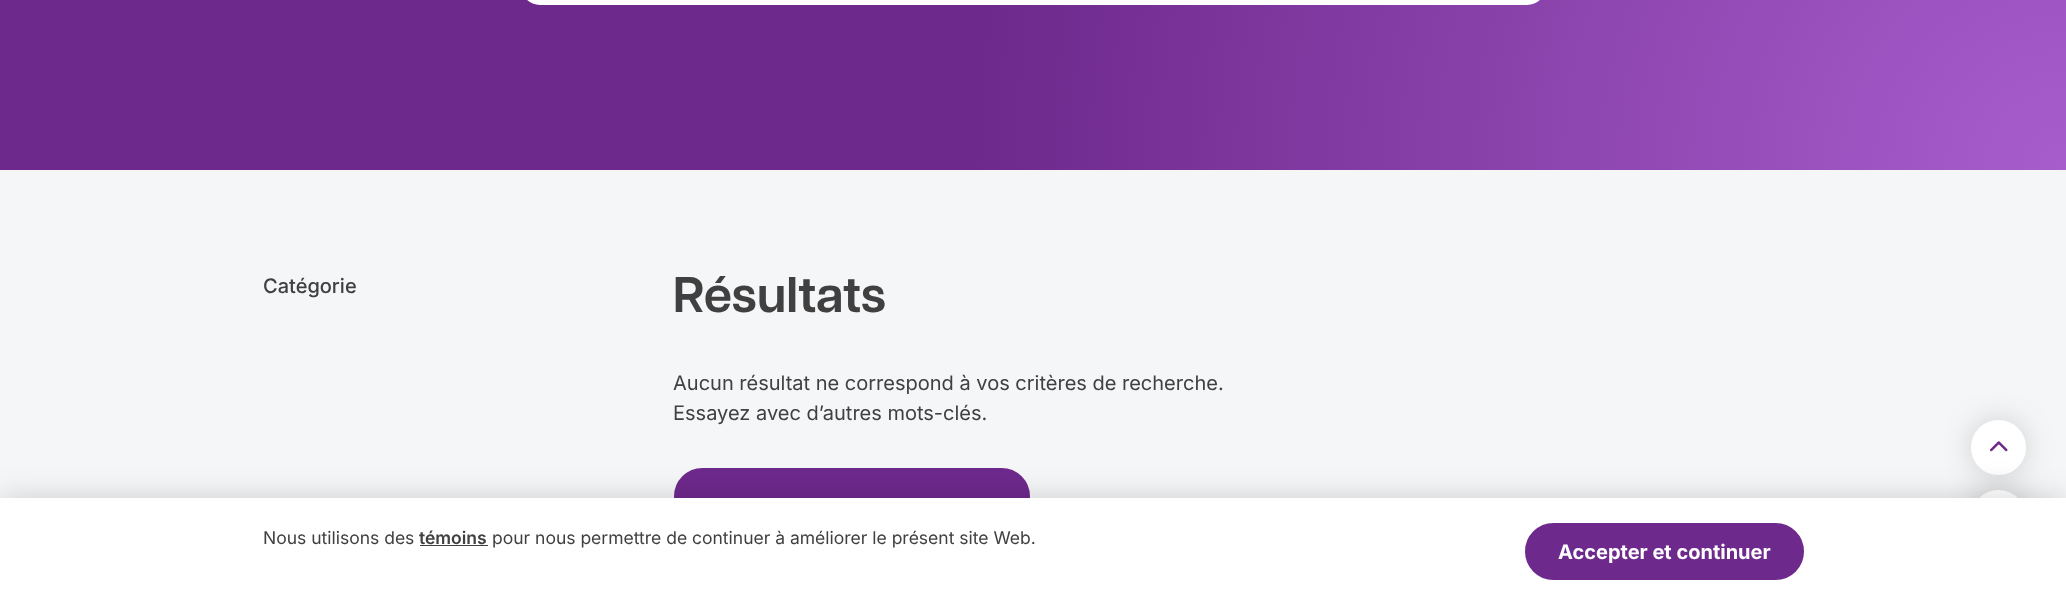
<!DOCTYPE html>
<meta charset="utf-8">
<style>body { margin: 0 } canvas { display: block }</style>
<canvas id="canvas" width="2066" height="605"></canvas>
<script type="module">
  const canvas = document.getElementById("canvas");
  const g = canvas.getContext("2d");
  g.miterLimit = 4;
  g.fontKerning = "normal";
  function drawText(s, x, y, [font, color]) {
    g.font = font;
    g.fillStyle = color;
    g.fillText(s, x, y);
  }
  function fillBox(x, y, w, h, color) {
    g.fillStyle = color;
    g.fillRect(x, y, w, h);
  }
  function fillRounded(x, y, w, h, r, color) {
    g.fillStyle = color;
    g.beginPath();
    g.roundRect(x, y, w, h, r);
    g.fill();
  }
  async function drawPicture(src, x, y, w, h) {
    const img = new Image();
    img.src = src;
    await img.decode();
    g.drawImage(img, x, y, w, h);
  }
  let gradient;

  const s1 = ["500 20px Inter", "#404041"];
  const s2 = ["600 50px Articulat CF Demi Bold", "#404041"];
  const s3 = ["20px Inter", "#404041"];
  const s4 = ["17.5px Inter", "#404041"];
  const s5 = ["600 17.5px Inter", "#404041"];
  const s6 = ["bold 20px Inter", "#FFFFFF"];

  fillBox(0, 0, 2066, 605, "#F5F6F7");
  gradient = g.createRadialGradient(2066, 170, 0, 2066, 170, 2186);
  gradient.addColorStop(0, "#A85DCD");
  gradient.addColorStop(0.5, "#6E298C");
  gradient.addColorStop(1, "#6E298C");
  g.fillStyle = gradient;
  g.fillRect(0, 0, 2066, 170);
  fillRounded(521, -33, 1025, 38, 32.5, "#FFFFFF");
  drawText("Catégorie", 263, 293, s1);
  drawText("Résultats", 673, 312, s2);
  drawText("Aucun résultat ne correspond à vos critères de recherche.", 673, 390, s3);
  drawText("Essayez avec d’autres mots-clés.", 673, 420, s3);
  g.fillStyle = "#6E298C";
  g.beginPath();
  g.roundRect(675.5, 469.5, 353, 54, 27);
  g.fill();
  g.strokeStyle = "#6E298C";
  g.lineWidth = 3;
  g.stroke();
  g.fillStyle = "rgba(0, 0, 0, 0.16)";
  g.filter = "blur(15px)";
  g.beginPath();
  g.roundRect(1971, 420, 55, 55, 27.5);
  g.fill();
  g.filter = "none";
  g.fillStyle = "#FFFFFF";
  g.beginPath();
  g.arc(1998.5, 447.5, 26, 0, Math.PI * 2);
  g.fill();
  g.strokeStyle = "#FFFFFF";
  g.stroke();
  g.fillStyle = "rgba(0, 0, 0, 0.16)";
  g.filter = "blur(15px)";
  g.beginPath();
  g.roundRect(1971, 490, 55, 55, 27.5);
  g.fill();
  g.filter = "none";
  g.fillStyle = "#FFFFFF";
  g.beginPath();
  g.arc(1998.5, 517.5, 26, 0, Math.PI * 2);
  g.fill();
  g.stroke();
  g.fillStyle = "rgba(0, 0, 0, 0.16)";
  g.filter = "blur(15px)";
  g.beginPath();
  g.rect(0, 498, 2066, 107);
  g.fill();
  g.filter = "none";
  fillBox(0, 498, 2066, 107, "#FFFFFF");
  drawText("Nous utilisons des", 263, 544, s4);
  drawText("témoins", 419, 544, s5);
  fillBox(420, 545, 68, 1, "#404041");
  drawText("pour nous permettre de continuer à améliorer le présent site Web.", 492, 544, s4);
  g.fillStyle = "#6E298C";
  g.beginPath();
  g.roundRect(1526.5, 524.5, 276, 54, 27);
  g.fill();
  g.strokeStyle = "#6E298C";
  g.stroke();
  drawText("Accepter et continuer", 1558, 559, s6);
  await drawPicture("pic1.png", 1990, 441, 18, 11);
</script>
